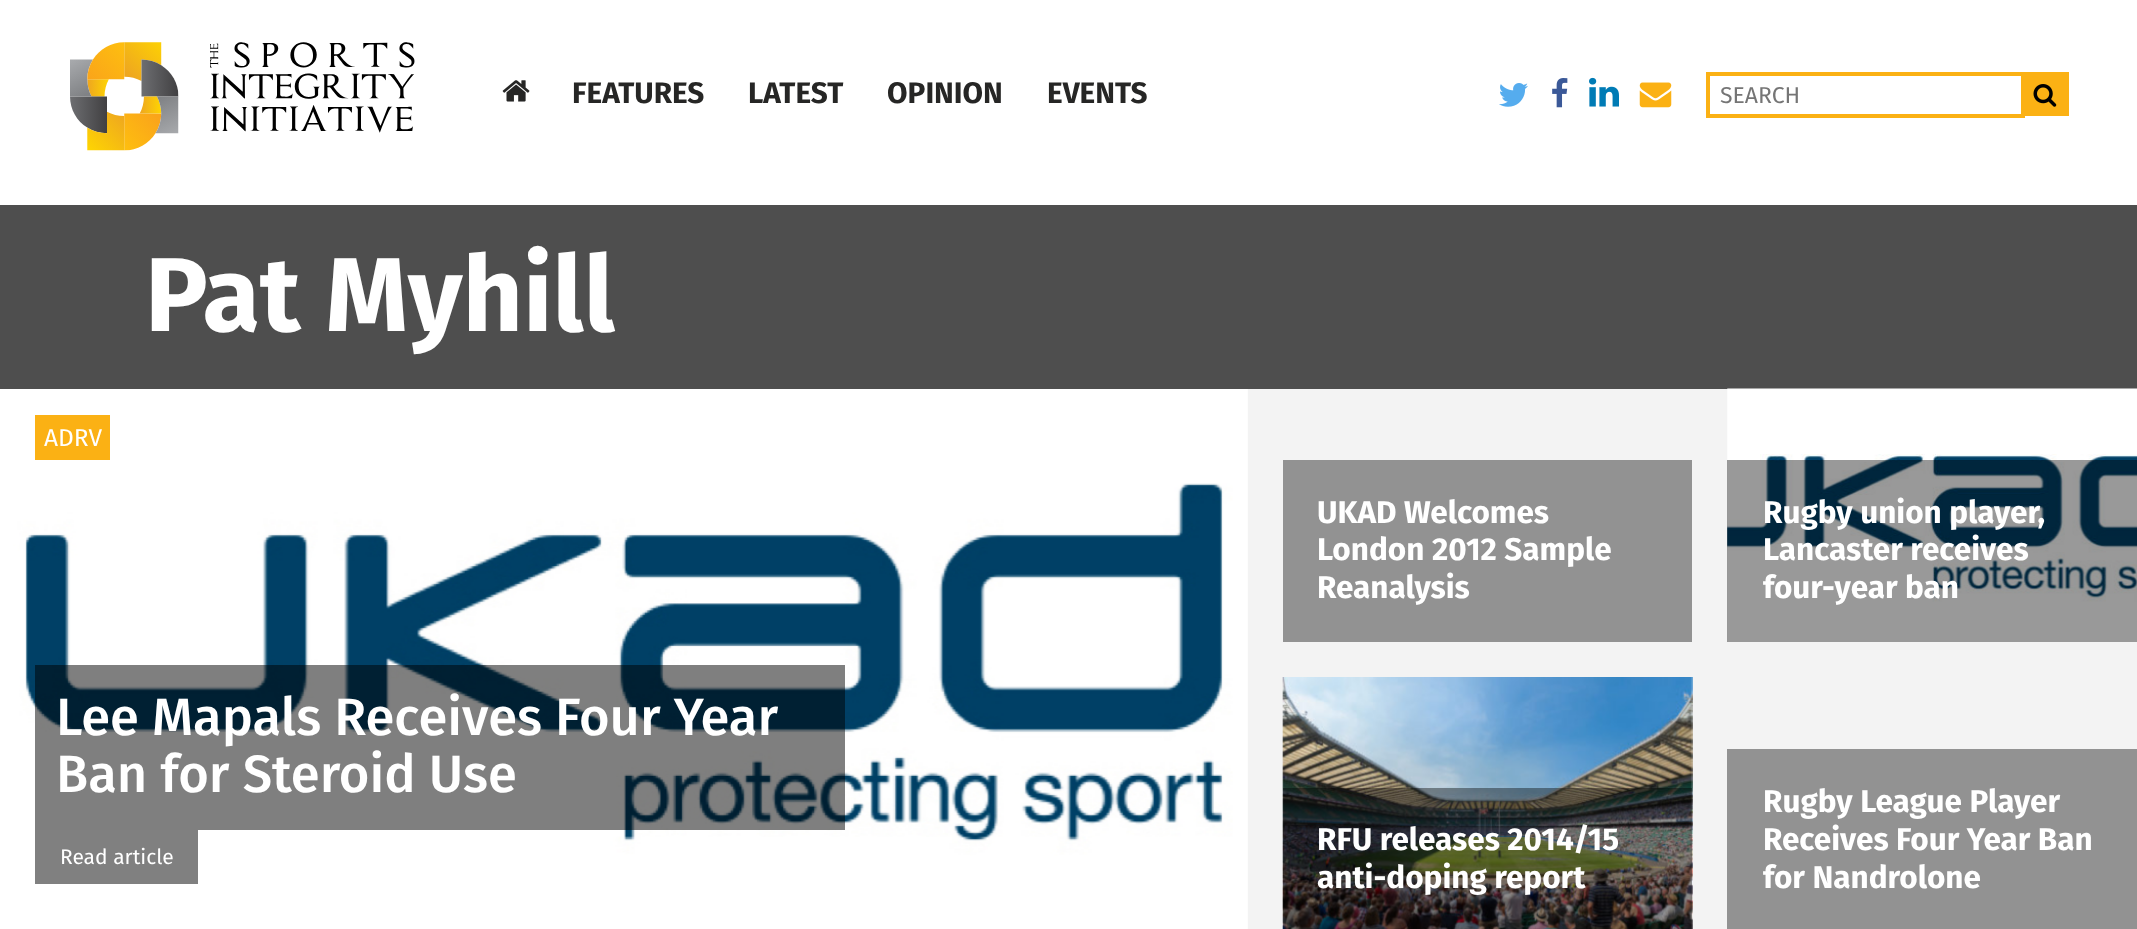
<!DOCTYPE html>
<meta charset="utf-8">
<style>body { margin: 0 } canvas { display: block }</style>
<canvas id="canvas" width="2137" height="929"></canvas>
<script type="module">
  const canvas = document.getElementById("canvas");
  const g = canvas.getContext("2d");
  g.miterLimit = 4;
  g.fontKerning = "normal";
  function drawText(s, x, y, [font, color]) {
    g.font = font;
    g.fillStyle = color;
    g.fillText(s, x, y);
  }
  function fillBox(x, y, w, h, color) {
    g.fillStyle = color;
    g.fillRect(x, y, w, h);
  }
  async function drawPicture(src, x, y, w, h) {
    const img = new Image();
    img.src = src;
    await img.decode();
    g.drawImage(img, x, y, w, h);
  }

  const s1 = ["bold 29.75px Fira Sans", "#262625"];
  const s2 = ["23px Fira Sans", "#757575"];
  const s3 = ["bold 105px Fira Sans", "#FFFFFF"];
  const s4 = ["24.5px Fira Sans", "#FFFFFF"];
  const s5 = ["500 52.5px Fira Sans", "#FFFFFF"];
  const s6 = ["21px Fira Sans", "#FFFFFF"];
  const s7 = ["bold 31.5px Fira Sans", "#FFFFFF"];

  fillBox(0, 0, 2137, 929, "#F3F3F3");
  fillBox(0, 0, 2137, 205, "#FFFFFF");
  await drawPicture("pic1.png", 70, 42, 109, 109);
  await drawPicture("pic2.png", 210, 42, 205, 91);
  await drawPicture("pic3.png", 502, 80, 28, 22);
  drawText("FEATURES", 572, 103, s1);
  drawText("LATEST", 748, 103, s1);
  drawText("OPINION", 887, 103, s1);
  drawText("EVENTS", 1047, 103, s1);
  await drawPicture("pic4.png", 1499, 83, 29, 24);
  await drawPicture("pic5.png", 1552, 78, 16, 30);
  await drawPicture("pic6.png", 1589, 77, 30, 30);
  await drawPicture("pic7.png", 1639, 82, 33, 26);
  fillBox(1706, 72, 319, 4, "#FBB114");
  fillBox(2021, 72, 4, 45, "#FBB114");
  fillBox(1706, 114, 319, 4, "#FBB114");
  fillBox(1706, 72, 4, 45, "#FBB114");
  drawText("SEARCH", 1720, 103, s2);
  fillBox(2025, 72, 44, 44, "#FBB114");
  await drawPicture("pic8.png", 2033, 84, 24, 23);
  fillBox(0, 205, 2137, 184, "#4E4E4E");
  drawText("Pat Myhill", 145, 331, s3);
  await drawPicture("pic9.png", 0, 389, 1248, 540);
  fillBox(35, 415, 75, 45, "#FBB114");
  drawText("ADRV", 44, 446, s4);
  fillBox(35, 665, 810, 165, "rgba(0, 0, 0, 0.5)");
  drawText("Lee Mapals Receives Four Year", 56, 735, s5);
  drawText("Ban for Steroid Use", 56, 792, s5);
  fillBox(35, 830, 163, 54, "#808080");
  drawText("Read article", 60, 864, s6);
  fillBox(1283, 460, 409, 182, "#929292");
  drawText("UKAD Welcomes", 1317, 523, s7);
  drawText("London 2012 Sample", 1317, 560, s7);
  drawText("Reanalysis", 1317, 598, s7);
  await drawPicture("pic10.png", 1727, 388, 410, 254);
  fillBox(1727, 460, 410, 182, "rgba(0, 0, 0, 0.4)");
  drawText("Rugby union player,", 1763, 523, s7);
  drawText("Lancaster receives", 1763, 560, s7);
  drawText("four-year ban", 1763, 598, s7);
  await drawPicture("pic11.png", 1282, 677, 411, 252);
  fillBox(1283, 788, 409, 141, "rgba(0, 0, 0, 0.4)");
  drawText("RFU releases 2014/15", 1317, 850, s7);
  drawText("anti-doping report", 1317, 888, s7);
  fillBox(1727, 749, 410, 180, "#929292");
  drawText("Rugby League Player", 1763, 812, s7);
  drawText("Receives Four Year Ban", 1763, 850, s7);
  drawText("for Nandrolone", 1763, 888, s7);
</script>
